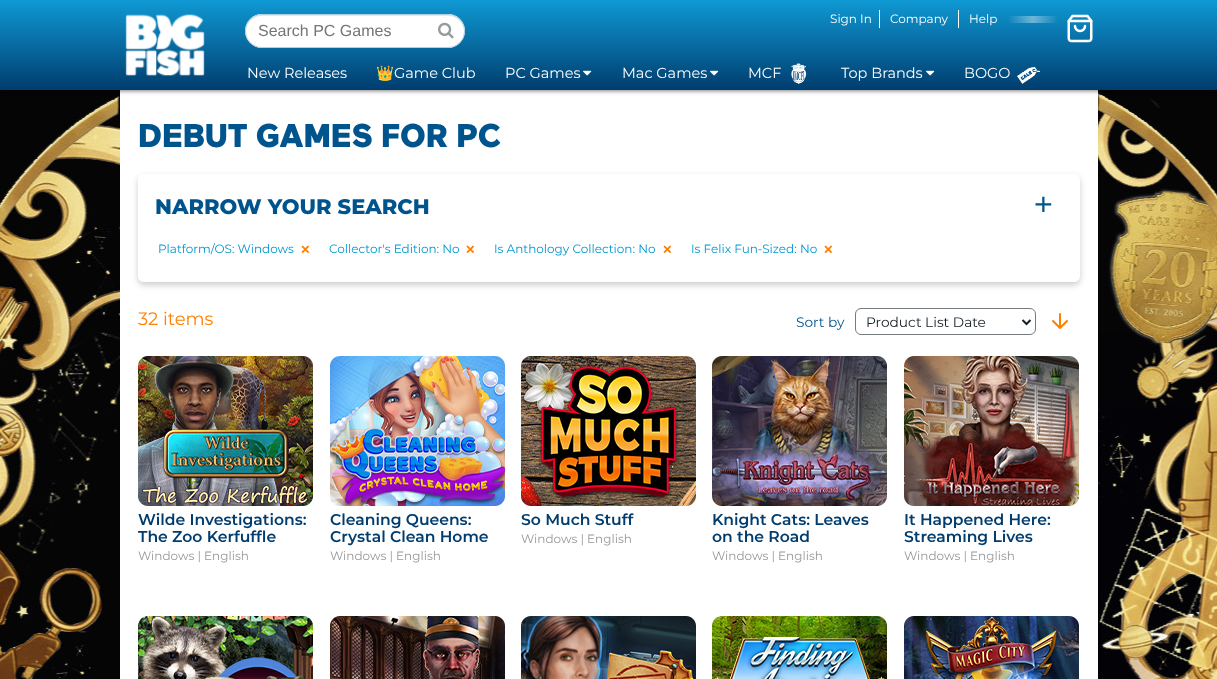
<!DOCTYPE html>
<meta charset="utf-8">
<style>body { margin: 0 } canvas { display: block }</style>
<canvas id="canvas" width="1217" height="679"></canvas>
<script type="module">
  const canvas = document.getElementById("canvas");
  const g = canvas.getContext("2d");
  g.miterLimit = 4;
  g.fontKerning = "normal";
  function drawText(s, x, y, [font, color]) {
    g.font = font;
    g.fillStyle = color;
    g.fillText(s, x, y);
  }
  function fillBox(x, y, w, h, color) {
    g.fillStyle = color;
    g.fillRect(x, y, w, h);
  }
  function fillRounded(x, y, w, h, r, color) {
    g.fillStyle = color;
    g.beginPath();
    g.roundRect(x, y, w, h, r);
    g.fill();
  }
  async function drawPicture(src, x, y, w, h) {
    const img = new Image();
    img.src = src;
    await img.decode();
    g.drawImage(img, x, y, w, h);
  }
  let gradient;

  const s1 = ["12px Montserrat", "#FFFFFF"];
  const s2 = ["14.5px Montserrat", "#FFFFFF"];
  const s3 = ["14.5px Noto Color Emoji", "#FFFFFF"];
  const s4 = ["16px Liberation Sans", "#757575"];
  const s5 = ["900 33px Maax", "#00548E"];
  const s6 = ["800 21px Montserrat", "#00548E"];
  const s7 = ["36px Montserrat", "#00548E"];
  const s8 = ["12px Montserrat", "#0097D0"];
  const s9 = ["18px Montserrat", "#FF8000"];
  const s10 = ["13.75px Montserrat", "#00548E"];
  const s11 = ["13.75px Montserrat", "#172026"];
  const s12 = ["600 15.6px Montserrat", "#003D6E"];
  const s13 = ["12px Montserrat", "#999999"];

  fillBox(0, 0, 1217, 679, "#FFFFFF");
  await drawPicture("pic7.png", 0, 90, 1217, 589);
  fillBox(120, 90, 978, 589, "#FFFFFF");
  g.fillStyle = "rgba(0, 0, 0, 0.5)";
  g.filter = "blur(2px)";
  g.beginPath();
  g.rect(0, 1, 1217, 90);
  g.fill();
  g.filter = "none";
  gradient = g.createLinearGradient(609, 0, 609, 90);
  gradient.addColorStop(0, "#0F99D4");
  gradient.addColorStop(1, "#003D6E");
  g.fillStyle = gradient;
  g.fillRect(0, 0, 1217, 90);
  drawText("Sign In", 830, 23, s1);
  fillBox(879, 10, 1, 18, "#FFFFFF");
  drawText("Company", 890, 23, s1);
  fillBox(958, 10, 1, 18, "#FFFFFF");
  drawText("Help", 969, 23, s1);
  gradient = g.createLinearGradient(1008, 20, 1058, 20);
  gradient.addColorStop(0, "rgba(255, 255, 255, 0)");
  gradient.addColorStop(0.5, "rgba(255, 255, 255, 0.4)");
  gradient.addColorStop(1, "rgba(255, 255, 255, 0)");
  g.fillStyle = gradient;
  g.fillRect(1008, 16, 50, 7);
  drawText("New Releases", 247, 78, s2);
  drawText("👑", 376, 78, s3);
  drawText("Game Club", 394, 78, s2);
  drawText("PC Games", 505, 78, s2);
  await drawPicture("pic1.png", 583, 70, 9, 6);
  drawText("Mac Games", 622, 78, s2);
  await drawPicture("pic1.png", 710, 70, 9, 6);
  drawText("MCF", 748, 78, s2);
  await drawPicture("pic2.png", 791, 63, 16, 21);
  drawText("Top Brands", 841, 78, s2);
  await drawPicture("pic1.png", 926, 70, 9, 6);
  drawText("BOGO", 964, 78, s2);
  await drawPicture("pic3.png", 1017, 67, 23, 17);
  await drawPicture("pic4.png", 1067, 14, 26, 29);
  await drawPicture("pic5.png", 125, 14, 80, 62);
  fillRounded(245, 14, 220, 34, 17, "#FFFFFF");
  g.fillStyle = "#E7E7E7";
  g.beginPath();
  g.moveTo(262, 16);
  g.lineTo(448, 16);
  g.bezierCurveTo(457, 16, 464, 23, 464, 31);
  g.bezierCurveTo(465, 8, 428, 15, 417, 15);
  g.lineTo(293, 15);
  g.bezierCurveTo(282, 15, 245, 8, 246, 31);
  g.bezierCurveTo(246, 23, 253, 16, 262, 16);
  g.closePath();
  g.fill();
  g.beginPath();
  g.roundRect(245.5, 14.5, 219, 33, 16.5);
  g.strokeStyle = "#B3CEDC";
  g.stroke();
  drawText("Search PC Games", 258, 36, s4);
  await drawPicture("pic6.png", 438, 22, 16, 17);
  drawText("DEBUT GAMES FOR PC", 138, 147, s5);
  g.save();
  g.beginPath();
  g.moveTo(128, 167);
  g.lineTo(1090, 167);
  g.lineTo(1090, 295);
  g.lineTo(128, 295);
  g.closePath();
  g.moveTo(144, 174);
  g.lineTo(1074, 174);
  g.bezierCurveTo(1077.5, 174, 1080, 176.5, 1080, 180);
  g.lineTo(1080, 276);
  g.bezierCurveTo(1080, 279.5, 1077.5, 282, 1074, 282);
  g.lineTo(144, 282);
  g.bezierCurveTo(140.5, 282, 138, 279.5, 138, 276);
  g.lineTo(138, 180);
  g.bezierCurveTo(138, 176.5, 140.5, 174, 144, 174);
  g.closePath();
  g.clip("evenodd");
  g.fillStyle = "rgba(0, 0, 0, 0.2)";
  g.filter = "blur(3px)";
  g.beginPath();
  g.roundRect(138, 177, 942, 108, 6);
  g.fill();
  g.filter = "none";
  g.restore();
  drawText("NARROW YOUR SEARCH", 155, 214, s6);
  drawText("+", 1033, 217, s7);
  drawText("Platform/OS: Windows", 158, 253, s8);
  await drawPicture("pic8.png", 301, 245, 8, 8);
  drawText("Collector's Edition: No", 329, 253, s8);
  await drawPicture("pic8.png", 466, 245, 8, 8);
  drawText("Is Anthology Collection: No", 494, 253, s8);
  await drawPicture("pic8.png", 663, 245, 8, 8);
  drawText("Is Felix Fun-Sized: No", 691, 253, s8);
  await drawPicture("pic8.png", 824, 245, 8, 8);
  drawText("32 items", 138, 325, s9);
  drawText("Sort by", 796, 327, s10);
  g.beginPath();
  g.roundRect(855.5, 308.5, 180, 26, 5.5);
  g.strokeStyle = "#767B7F";
  g.stroke();
  g.beginPath();
  g.moveTo(1022.5, 320);
  g.lineTo(1026.5, 324);
  g.lineTo(1030.5, 320);
  g.strokeStyle = "#172026";
  g.lineWidth = 2;
  g.stroke();
  drawText("Product List Date", 866, 327, s11);
  g.beginPath();
  g.moveTo(1060, 314);
  g.lineTo(1060, 328);
  g.moveTo(1053, 321);
  g.lineTo(1060, 328);
  g.lineTo(1067, 321);
  g.strokeStyle = "#FF8000";
  g.lineCap = "round";
  g.lineJoin = "round";
  g.stroke();
  await drawPicture("pic9.png", 138, 356, 175, 150);
  drawText("Wilde Investigations:", 138, 525, s12);
  drawText("The Zoo Kerfuffle", 138, 542, s12);
  drawText("Windows | English", 138, 560, s13);
  await drawPicture("pic10.png", 330, 356, 175, 150);
  drawText("Cleaning Queens:", 330, 525, s12);
  drawText("Crystal Clean Home", 330, 542, s12);
  drawText("Windows | English", 330, 560, s13);
  await drawPicture("pic11.png", 521, 356, 175, 150);
  drawText("So Much Stuff", 521, 525, s12);
  drawText("Windows | English", 521, 543, s13);
  await drawPicture("pic12.png", 712, 356, 175, 150);
  drawText("Knight Cats: Leaves", 712, 525, s12);
  drawText("on the Road", 712, 542, s12);
  drawText("Windows | English", 712, 560, s13);
  await drawPicture("pic13.png", 904, 356, 175, 150);
  drawText("It Happened Here:", 904, 525, s12);
  drawText("Streaming Lives", 904, 542, s12);
  drawText("Windows | English", 904, 560, s13);
  await drawPicture("pic14.png", 138, 616, 175, 63);
  await drawPicture("pic15.png", 330, 616, 175, 63);
  await drawPicture("pic16.png", 521, 616, 175, 63);
  await drawPicture("pic17.png", 712, 616, 175, 63);
  await drawPicture("pic18.png", 904, 616, 175, 63);
</script>
